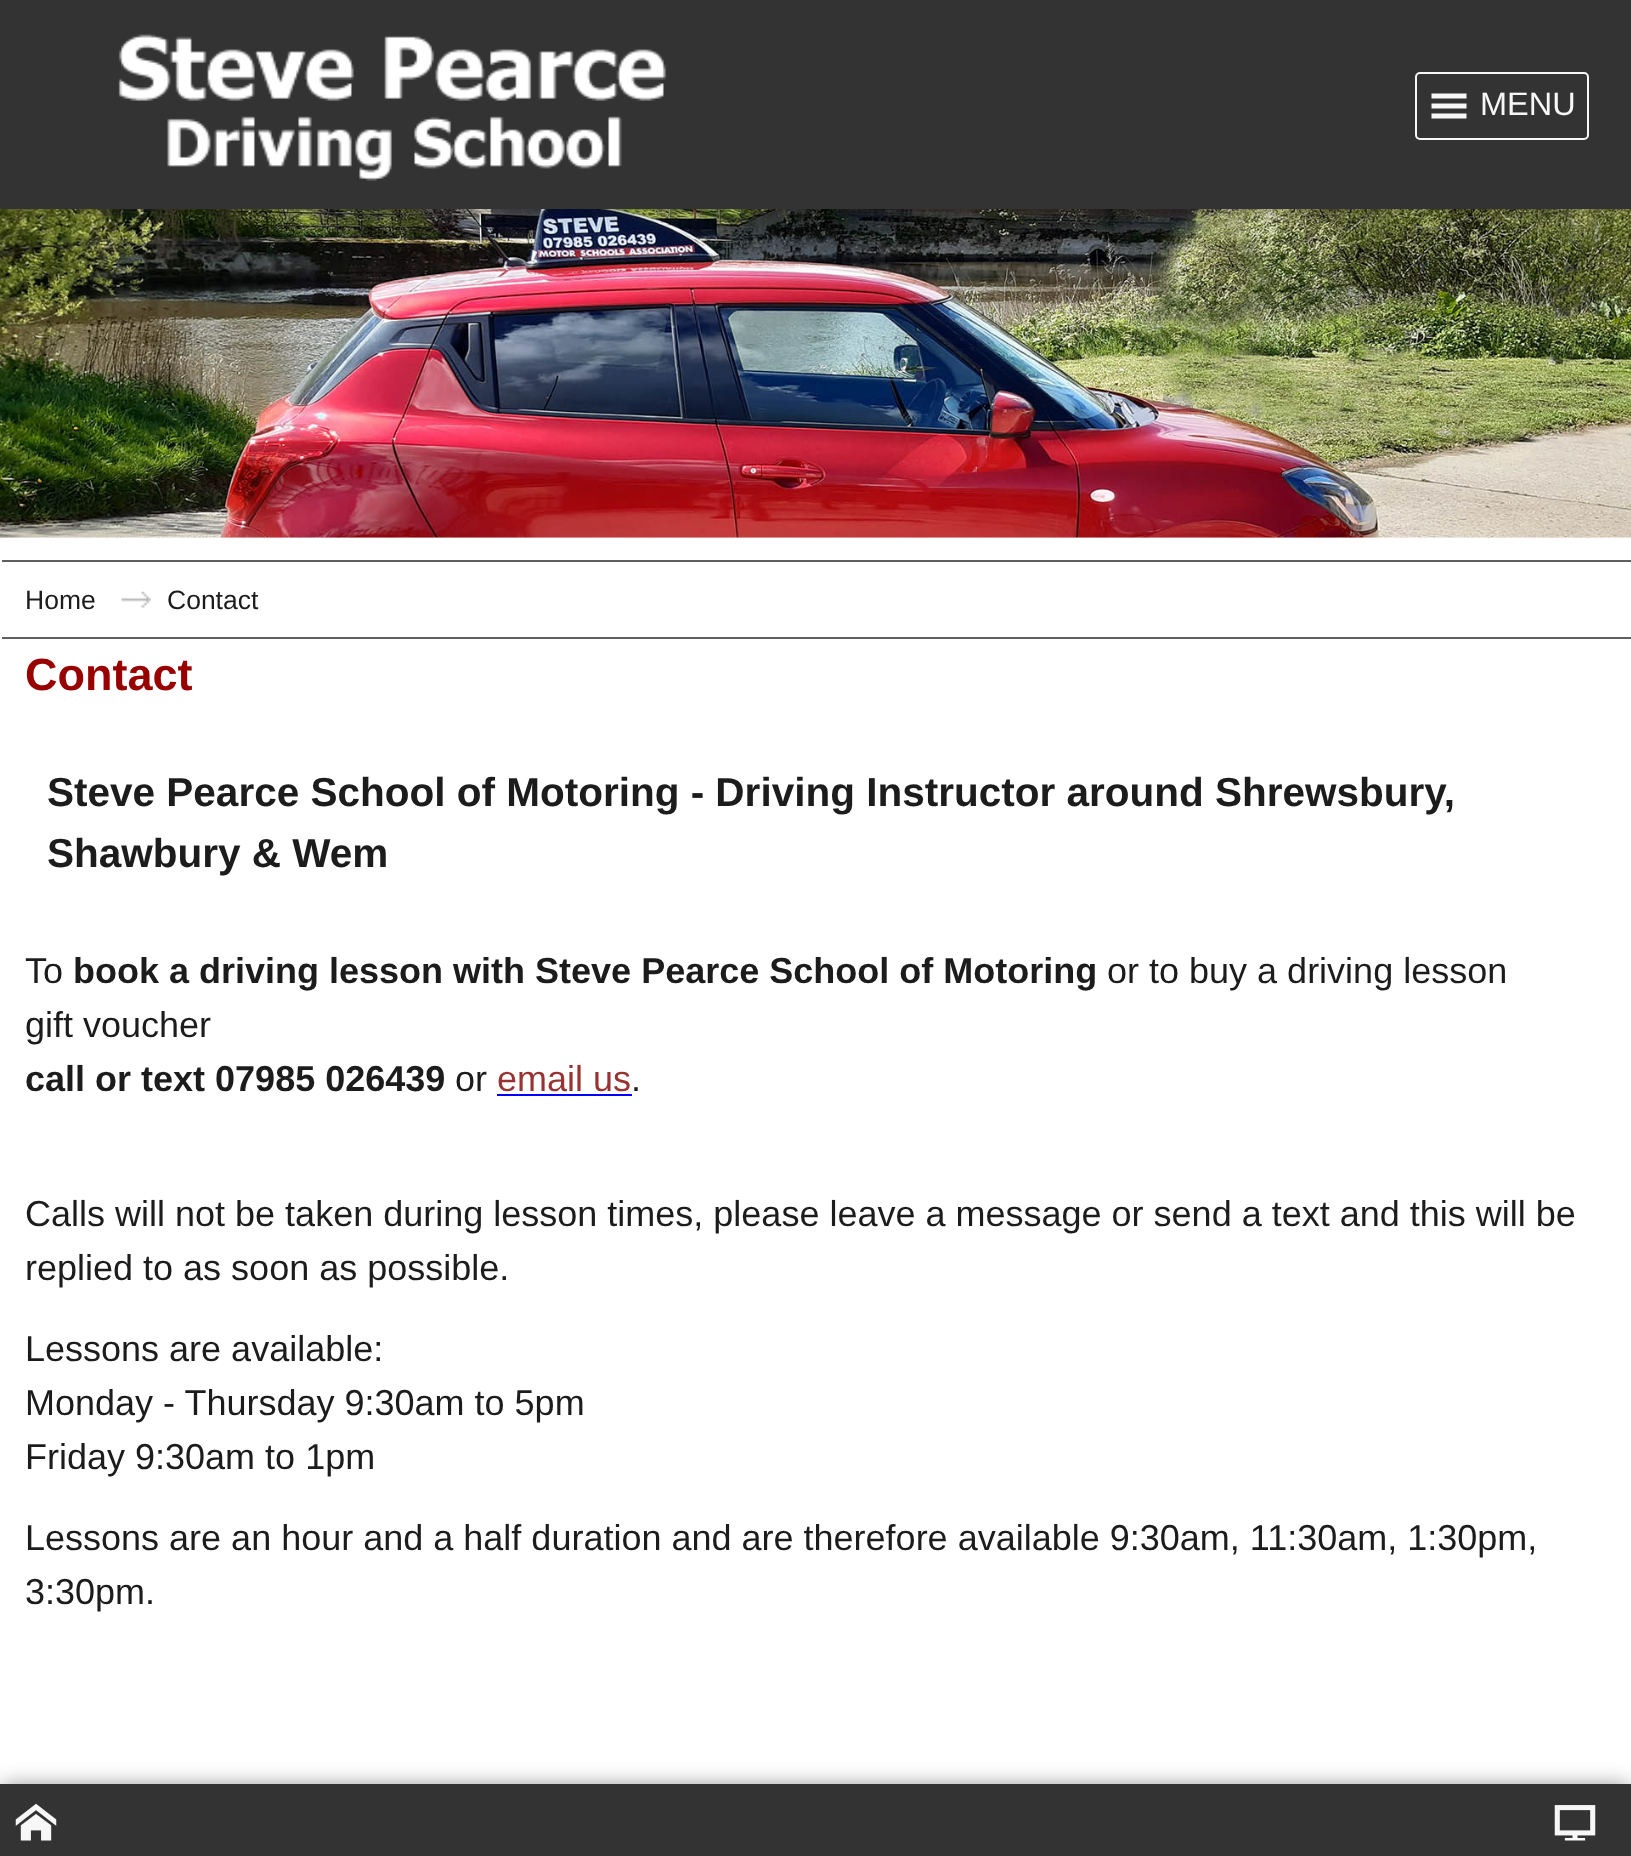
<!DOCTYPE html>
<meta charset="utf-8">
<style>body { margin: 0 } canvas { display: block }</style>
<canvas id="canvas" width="1631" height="1856"></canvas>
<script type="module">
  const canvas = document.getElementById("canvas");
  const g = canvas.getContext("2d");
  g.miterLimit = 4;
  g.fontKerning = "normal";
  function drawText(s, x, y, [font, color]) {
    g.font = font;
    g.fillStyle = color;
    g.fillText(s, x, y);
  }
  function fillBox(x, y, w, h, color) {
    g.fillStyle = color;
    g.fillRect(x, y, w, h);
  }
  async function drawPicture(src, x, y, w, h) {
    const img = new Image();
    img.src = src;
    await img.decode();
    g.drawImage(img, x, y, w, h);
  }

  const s1 = ["32.5px Liberation Sans", "#F7F7F7"];
  const s2 = ["26.5px Liberation Sans", "#1C1C1C"];
  const s3 = ["bold 45px Liberation Sans", "#990000"];
  const s4 = ["bold 40.5px Liberation Sans", "#1C1C1C"];
  const s5 = ["36px Liberation Sans", "#1C1C1C"];
  const s6 = ["bold 36px Liberation Sans", "#1C1C1C"];
  const s7 = ["36px Liberation Sans", "#993333"];

  fillBox(0, 0, 1631, 1856, "#FFFFFF");
  await drawPicture("pic2.png", 0, 209, 1631, 329);
  g.fillStyle = "rgba(0, 0, 0, 0.5)";
  g.filter = "blur(11px)";
  g.beginPath();
  g.rect(2, 2, 1627, 205);
  g.fill();
  g.filter = "none";
  fillBox(0, 0, 1631, 209, "#333333");
  await drawPicture("pic1.png", 118, 34, 549, 147);
  g.beginPath();
  g.roundRect(1416, 73, 172, 66, 4);
  g.strokeStyle = "#F7F7F7";
  g.lineWidth = 2;
  g.stroke();
  g.fillStyle = "#F7F7F7";
  g.beginPath();
  g.moveTo(1431.5, 93.5);
  g.lineTo(1466.5, 93.5);
  g.lineTo(1466.5, 98.5);
  g.lineTo(1431.5, 98.5);
  g.closePath();
  g.moveTo(1431.5, 103.5);
  g.lineTo(1466.5, 103.5);
  g.lineTo(1466.5, 108.5);
  g.lineTo(1431.5, 108.5);
  g.closePath();
  g.moveTo(1431.5, 113.5);
  g.lineTo(1466.5, 113.5);
  g.lineTo(1466.5, 118.5);
  g.lineTo(1431.5, 118.5);
  g.closePath();
  g.fill();
  drawText("MENU", 1480, 115, s1);
  g.save();
  g.beginPath();
  g.rect(2, 540, 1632, 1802);
  g.clip();
  g.strokeStyle = "#5F5F5F";
  g.strokeRect(-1, 561, 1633, 77);
  g.restore();
  drawText("Home", 25, 609, s2);
  await drawPicture("pic3.png", 121, 591, 30, 17);
  drawText("Contact", 167, 609, s2);
  drawText("Contact", 25, 690, s3);
  drawText("Steve Pearce School of Motoring - Driving Instructor around Shrewsbury,", 47, 806, s4);
  drawText("Shawbury & Wem", 47, 867, s4);
  drawText("To", 25, 983, s5);
  drawText("book a driving lesson with Steve Pearce School of Motoring", 73, 983, s6);
  drawText("or to buy a driving lesson", 1107, 983, s5);
  drawText("gift voucher", 25, 1037, s5);
  drawText("call or text 07985 026439", 25, 1091, s6);
  drawText("or", 455, 1091, s5);
  drawText("email us", 497, 1091, s7);
  fillBox(497, 1094, 135, 2, "#0000FF");
  drawText(".", 631, 1091, s5);
  drawText("Calls will not be taken during lesson times, please leave a message or send a text and this will be", 25, 1226, s5);
  drawText("replied to as soon as possible.", 25, 1280, s5);
  drawText("Lessons are available:", 25, 1361, s5);
  drawText("Monday - Thursday 9:30am to 5pm", 25, 1415, s5);
  drawText("Friday 9:30am to 1pm", 25, 1469, s5);
  drawText("Lessons are an hour and a half duration and are therefore available 9:30am, 11:30am, 1:30pm,", 25, 1550, s5);
  drawText("3:30pm.", 25, 1604, s5);
  g.fillStyle = "rgba(0, 0, 0, 0.5)";
  g.filter = "blur(11px)";
  g.beginPath();
  g.rect(2, 1787, 1627, 67);
  g.fill();
  g.filter = "none";
  fillBox(0, 1784, 1631, 72, "#333333");
  await drawPicture("pic4.png", 15, 1803, 42, 38);
  await drawPicture("pic5.png", 1554, 1805, 42, 36);
</script>
